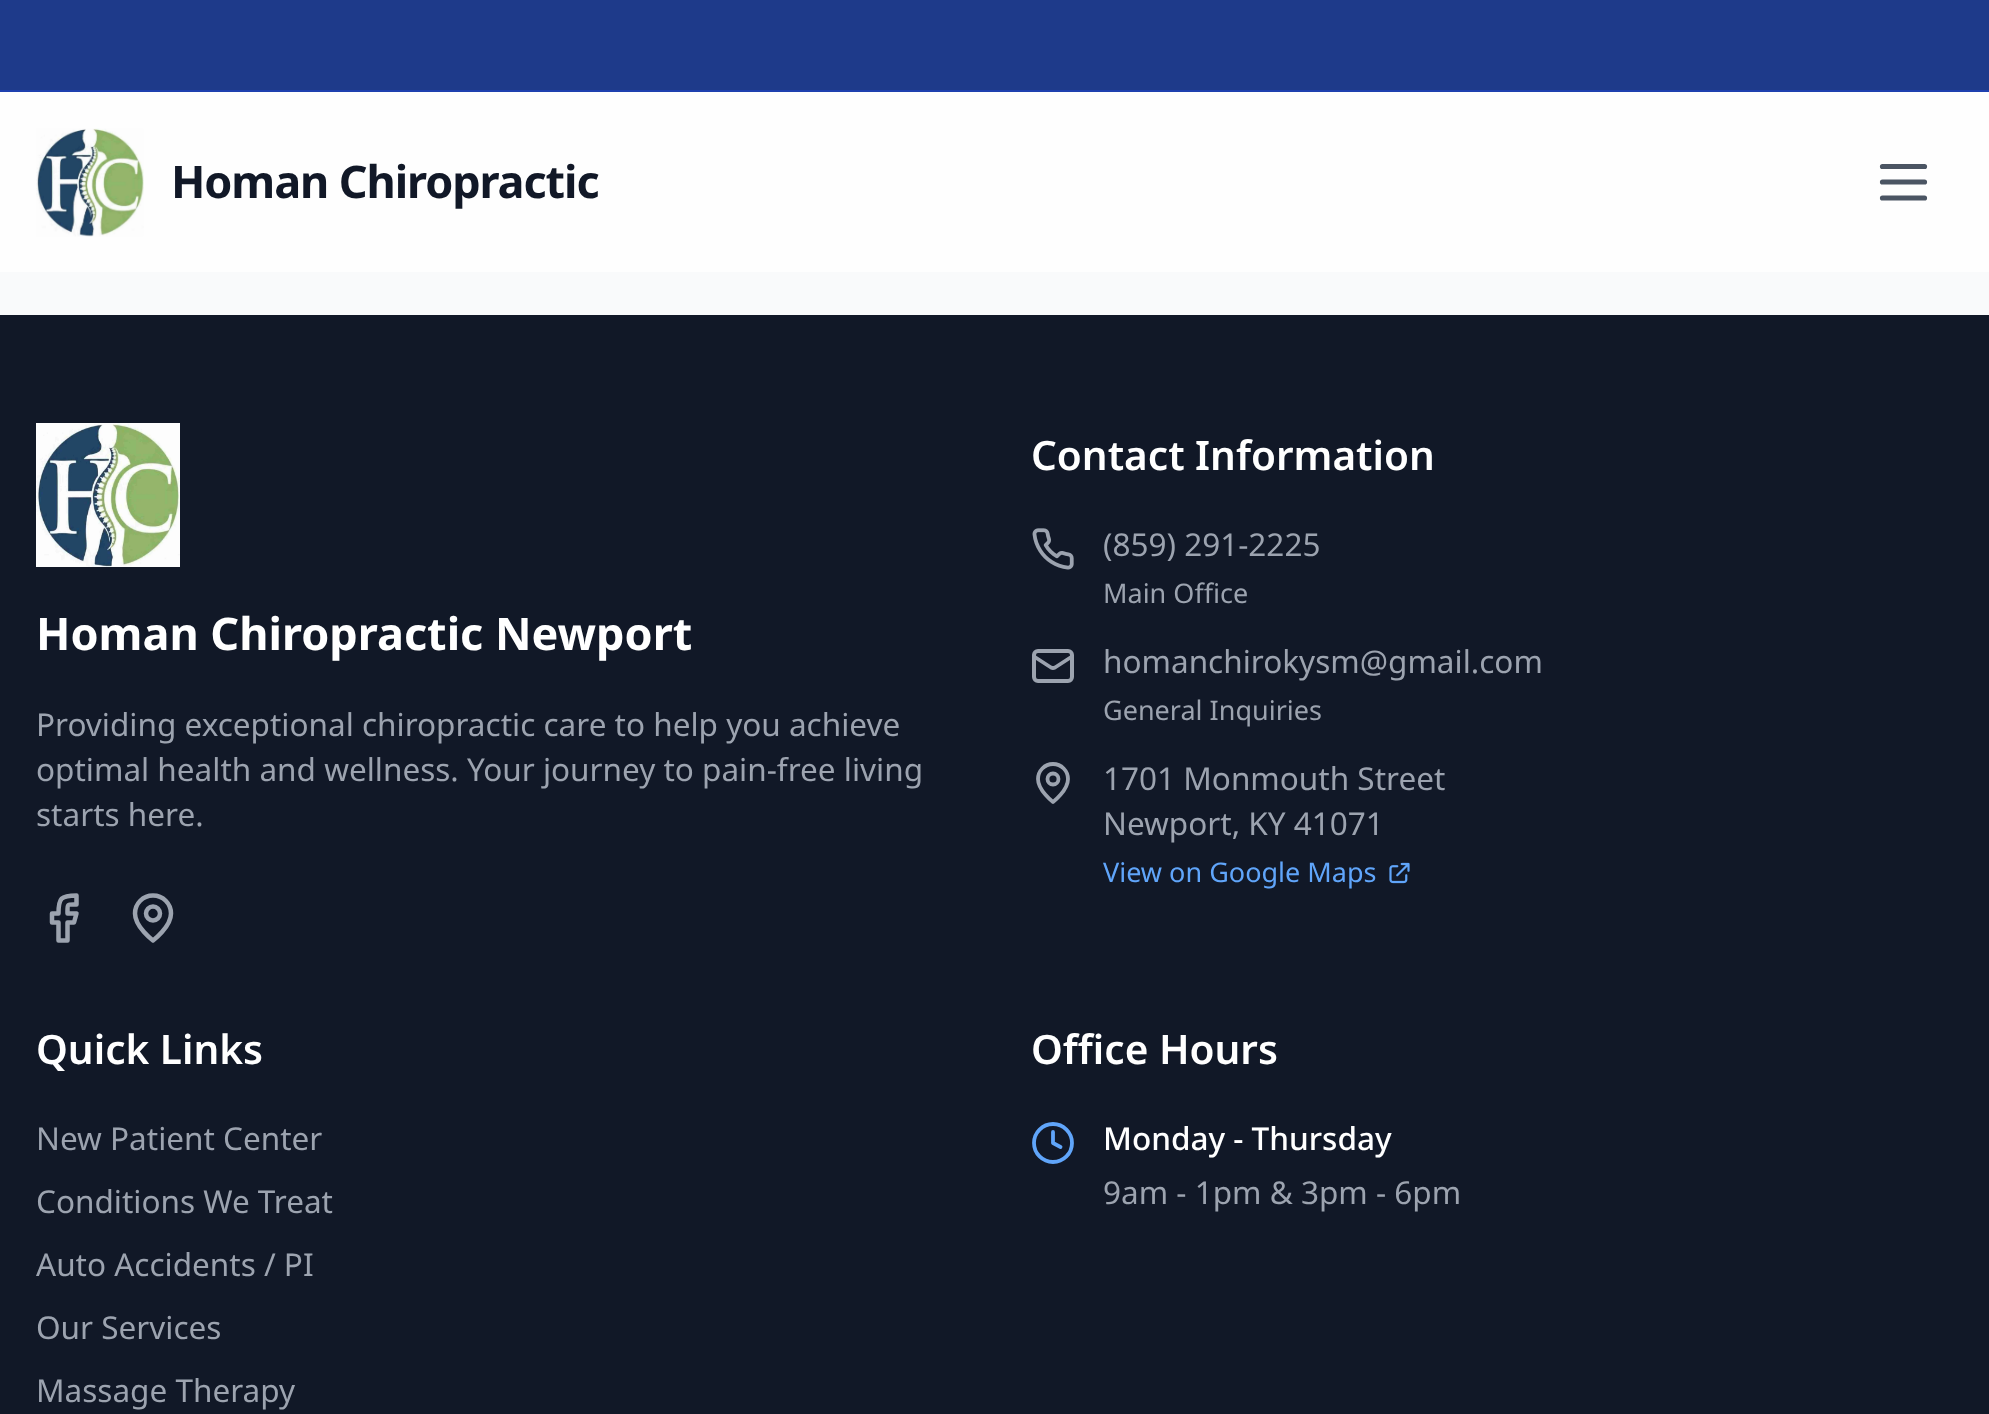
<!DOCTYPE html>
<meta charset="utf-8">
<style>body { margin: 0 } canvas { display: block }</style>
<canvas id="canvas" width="1989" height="1414"></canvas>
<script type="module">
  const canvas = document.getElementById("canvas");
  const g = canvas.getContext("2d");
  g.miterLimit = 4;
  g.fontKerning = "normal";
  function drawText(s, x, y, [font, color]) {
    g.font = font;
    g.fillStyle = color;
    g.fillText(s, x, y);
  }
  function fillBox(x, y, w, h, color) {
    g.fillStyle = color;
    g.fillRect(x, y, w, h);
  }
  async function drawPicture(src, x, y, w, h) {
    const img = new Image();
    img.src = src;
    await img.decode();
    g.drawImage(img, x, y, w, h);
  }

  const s1 = ["bold 45px Noto Sans", "#111827"];
  const s2 = ["bold 45px Noto Sans", "#FFFFFF"];
  const s3 = ["31.5px Noto Sans", "#9CA3AF"];
  const s4 = ["600 40.5px Noto Sans", "#FFFFFF"];
  const s5 = ["27px Noto Sans", "#9CA3AF"];
  const s6 = ["27px Noto Sans", "#60A5FA"];
  const s7 = ["500 31.5px Noto Sans", "#FFFFFF"];

  fillBox(0, 0, 1989, 1414, "#F9FAFB");
  fillBox(0, 92, 1989, 180, "#FEFEFE");
  fillBox(0, 0, 1989, 90, "#1E3A8A");
  fillBox(0, 90, 1989, 2, "#1E40AF");
  await drawPicture("pic1.png", 36, 128, 108, 109);
  g.letterSpacing = "-1.1px";
  drawText("Homan Chiropractic", 171, 198, s1);
  g.beginPath();
  g.moveTo(1882.5, 182);
  g.lineTo(1924.5, 182);
  g.moveTo(1882.5, 166.5);
  g.lineTo(1924.5, 166.5);
  g.moveTo(1882.5, 198);
  g.lineTo(1924.5, 198);
  g.strokeStyle = "#4B5563";
  g.lineWidth = 5.2;
  g.lineCap = "round";
  g.lineJoin = "round";
  g.stroke();
  fillBox(0, 315, 1989, 1099, "#111827");
  await drawPicture("pic2.png", 36, 423, 144, 144);
  g.letterSpacing = "0px";
  drawText("Homan Chiropractic Newport", 36, 650, s2);
  drawText("Providing exceptional chiropractic care to help you achieve", 36, 736, s3);
  drawText("optimal health and wellness. Your journey to pain-free living", 36, 781, s3);
  drawText("starts here.", 36, 826, s3);
  g.beginPath();
  g.moveTo(76.5, 895.5);
  g.bezierCurveTo(61, 895.5, 58.5, 898, 58.5, 913.5);
  g.lineTo(52, 913.5);
  g.lineTo(52, 922.5);
  g.lineTo(58.5, 922.5);
  g.lineTo(58.5, 940.5);
  g.lineTo(67.5, 940.5);
  g.lineTo(67.5, 922.5);
  g.lineTo(74, 922.5);
  g.lineTo(76.5, 913.5);
  g.lineTo(67.5, 913.5);
  g.bezierCurveTo(67.5, 903.5, 66.5, 904.5, 76.5, 904.5);
  g.closePath();
  g.strokeStyle = "#9CA3AF";
  g.lineWidth = 4.5;
  g.stroke();
  g.beginPath();
  g.moveTo(171, 913.5);
  g.bezierCurveTo(171, 927, 153, 940.5, 153, 940.5);
  g.bezierCurveTo(153, 940.5, 135, 927, 135, 913.5);
  g.bezierCurveTo(135, 903.5, 143, 895.5, 153, 895.5);
  g.bezierCurveTo(163, 895.5, 171, 903.5, 171, 913.5);
  g.closePath();
  g.stroke();
  g.beginPath();
  g.arc(153, 913.5, 7, 0, Math.PI * 2);
  g.stroke();
  drawText("Contact Information", 1031, 470, s4);
  await drawPicture("pic3.png", 1032, 528, 42, 42);
  drawText("(859) 291-2225", 1103, 556, s3);
  drawText("Main Office", 1103, 603, s5);
  g.beginPath();
  g.roundRect(1034, 651, 38, 30, 4);
  g.lineWidth = 4;
  g.lineJoin = "miter";
  g.stroke();
  g.beginPath();
  g.moveTo(1072, 656.5);
  g.lineTo(1055, 667.5);
  g.bezierCurveTo(1054, 668, 1052, 668, 1051, 667.5);
  g.lineTo(1034, 656.5);
  g.lineWidth = 3.8;
  g.lineJoin = "round";
  g.stroke();
  drawText("homanchirokysm@gmail.com", 1103, 673, s3);
  drawText("General Inquiries", 1103, 720, s5);
  g.beginPath();
  g.moveTo(1068, 779);
  g.bezierCurveTo(1068, 790.5, 1053, 802, 1053, 802);
  g.bezierCurveTo(1053, 802, 1038, 790.5, 1038, 779);
  g.bezierCurveTo(1038, 771, 1044.5, 764, 1053, 764);
  g.bezierCurveTo(1061.5, 764, 1068, 771, 1068, 779);
  g.closePath();
  g.stroke();
  g.beginPath();
  g.arc(1053, 779, 5.5, 0, Math.PI * 2);
  g.stroke();
  drawText("1701 Monmouth Street", 1103, 790, s3);
  drawText("Newport, KY 41071", 1103, 835, s3);
  drawText("View on Google Maps", 1103, 882, s6);
  await drawPicture("pic4.png", 1389, 862, 21, 22);
  drawText("Quick Links", 36, 1064, s4);
  drawText("New Patient Center", 36, 1150, s3);
  drawText("Conditions We Treat", 36, 1213, s3);
  drawText("Auto Accidents / PI", 36, 1276, s3);
  drawText("Our Services", 36, 1339, s3);
  drawText("Massage Therapy", 36, 1402, s3);
  drawText("Office Hours", 1031, 1064, s4);
  g.beginPath();
  g.arc(1053, 1143, 19, 0, Math.PI * 2);
  g.strokeStyle = "#60A5FA";
  g.stroke();
  g.beginPath();
  g.moveTo(1053, 1132);
  g.lineTo(1053, 1143);
  g.lineTo(1060.5, 1147);
  g.stroke();
  drawText("Monday - Thursday", 1103, 1150, s7);
  drawText("9am - 1pm & 3pm - 6pm", 1103, 1204, s3);
</script>
